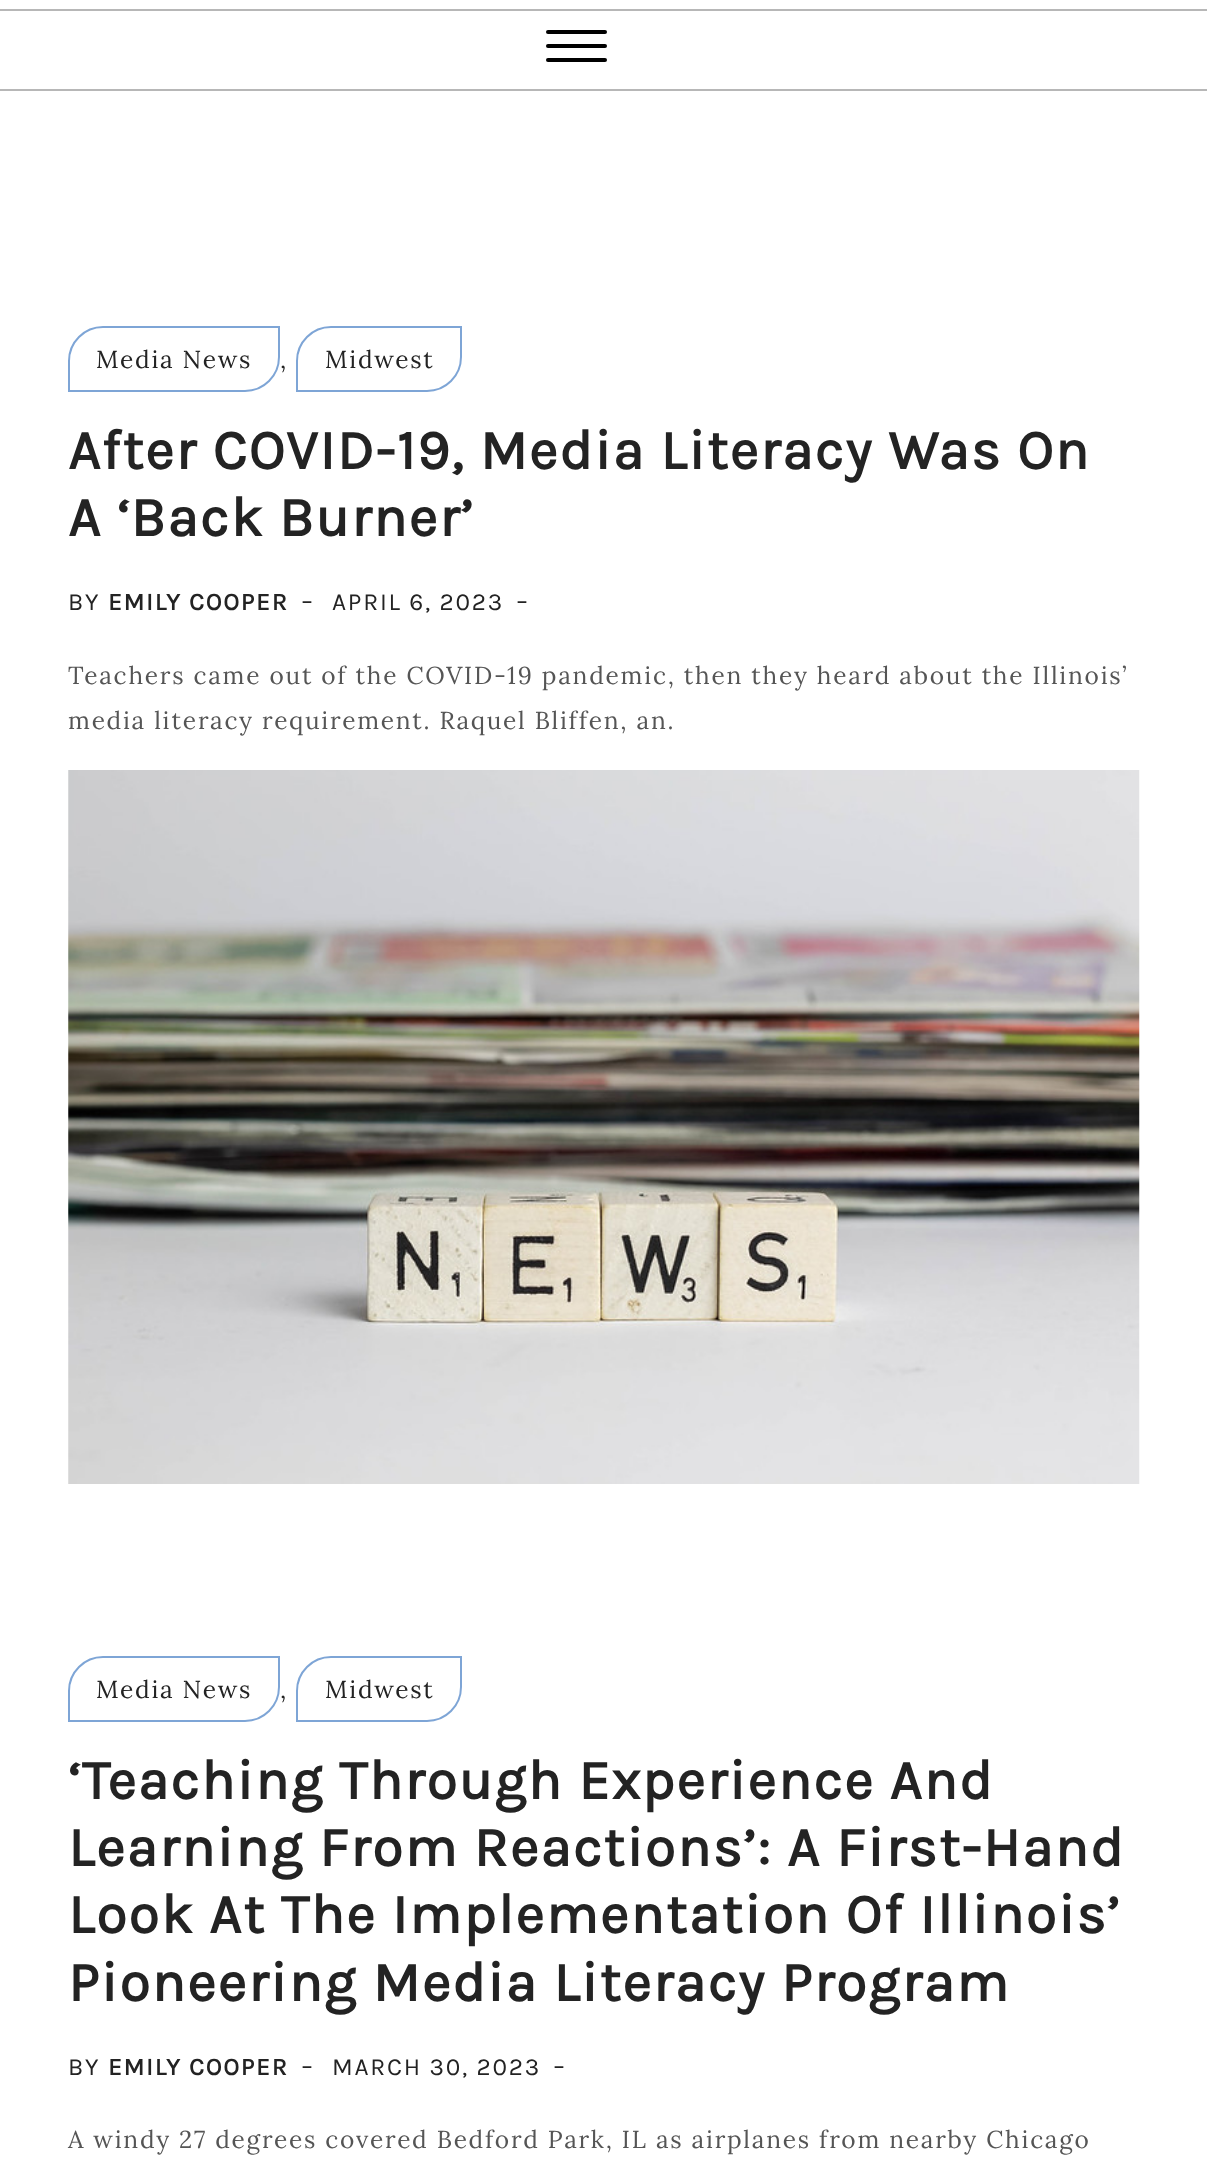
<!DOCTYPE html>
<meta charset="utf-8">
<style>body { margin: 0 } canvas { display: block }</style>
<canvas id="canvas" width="1207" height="2168"></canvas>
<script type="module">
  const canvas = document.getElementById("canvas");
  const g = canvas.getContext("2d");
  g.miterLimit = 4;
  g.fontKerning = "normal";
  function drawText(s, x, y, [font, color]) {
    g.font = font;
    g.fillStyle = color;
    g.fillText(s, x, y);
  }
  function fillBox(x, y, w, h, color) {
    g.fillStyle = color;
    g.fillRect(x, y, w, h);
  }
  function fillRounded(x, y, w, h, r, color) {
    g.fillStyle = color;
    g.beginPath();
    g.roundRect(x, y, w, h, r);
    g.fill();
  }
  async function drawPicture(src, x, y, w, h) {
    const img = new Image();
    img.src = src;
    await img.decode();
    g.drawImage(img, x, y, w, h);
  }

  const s1 = ["24.5px Lora", "#232323"];
  const s2 = ["bold 56px Karla", "#232323"];
  const s3 = ["24.5px Karla", "#232323"];
  const s4 = ["bold 24.5px Karla", "#232323"];
  const s5 = ["24.5px Lora", "#555555"];

  fillBox(0, 0, 1207, 2168, "#FFFFFF");
  fillBox(0, 9, 1207, 2, "#B7B7B7");
  fillBox(0, 89, 1207, 2, "#B7B7B7");
  fillRounded(546, 30, 61, 4, 2, "#000000");
  fillRounded(546, 44, 61, 4, 2, "#000000");
  fillRounded(546, 58, 61, 4, 2, "#000000");
  g.beginPath();
  g.roundRect(69, 327, 210, 64, [34, 0, 34, 0]);
  g.strokeStyle = "#7EA5D6";
  g.lineWidth = 2;
  g.stroke();
  g.letterSpacing = "1.75px";
  drawText("Media News", 96, 368, s1);
  drawText(",", 280, 368, s1);
  g.beginPath();
  g.roundRect(297, 327, 164, 64, [34, 0, 34, 0]);
  g.stroke();
  drawText("Midwest", 325, 368, s1);
  drawText("After COVID-19, Media Literacy Was On", 68, 469, s2);
  drawText("A ‘Back Burner’", 68, 536, s2);
  drawText("BY", 68, 610, s3);
  drawText("EMILY COOPER", 108, 610, s4);
  drawText("-", 301, 610, s1);
  drawText("APRIL 6, 2023", 332, 610, s3);
  drawText("-", 516, 610, s1);
  drawText("Teachers came out of the COVID-19 pandemic, then they heard about the Illinois’", 68, 684, s5);
  drawText("media literacy requirement. Raquel Bliffen, an.", 68, 729, s5);
  await drawPicture("pic1.png", 68, 770, 1072, 714);
  g.beginPath();
  g.roundRect(69, 1657, 210, 64, [34, 0, 34, 0]);
  g.stroke();
  drawText("Media News", 96, 1698, s1);
  drawText(",", 280, 1698, s1);
  g.beginPath();
  g.roundRect(297, 1657, 164, 64, [34, 0, 34, 0]);
  g.stroke();
  drawText("Midwest", 325, 1698, s1);
  drawText("‘Teaching Through Experience And", 68, 1799, s2);
  drawText("Learning From Reactions’: A First-Hand", 68, 1866, s2);
  drawText("Look At The Implementation Of Illinois’", 68, 1933, s2);
  drawText("Pioneering Media Literacy Program", 68, 2001, s2);
  drawText("BY", 68, 2075, s3);
  drawText("EMILY COOPER", 108, 2075, s4);
  drawText("-", 301, 2075, s1);
  drawText("MARCH 30, 2023", 332, 2075, s3);
  drawText("-", 553, 2075, s1);
  drawText("A windy 27 degrees covered Bedford Park, IL as airplanes from nearby Chicago", 68, 2148, s5);
</script>
